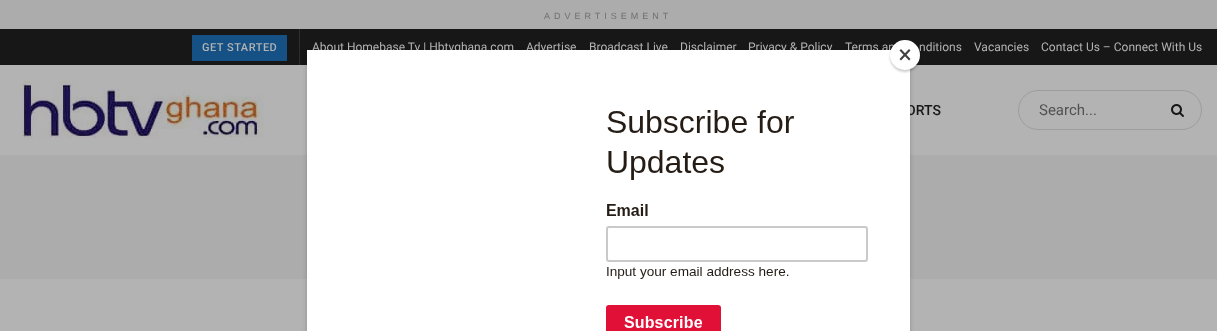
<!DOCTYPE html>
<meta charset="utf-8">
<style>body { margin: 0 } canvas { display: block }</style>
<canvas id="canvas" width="1217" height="331"></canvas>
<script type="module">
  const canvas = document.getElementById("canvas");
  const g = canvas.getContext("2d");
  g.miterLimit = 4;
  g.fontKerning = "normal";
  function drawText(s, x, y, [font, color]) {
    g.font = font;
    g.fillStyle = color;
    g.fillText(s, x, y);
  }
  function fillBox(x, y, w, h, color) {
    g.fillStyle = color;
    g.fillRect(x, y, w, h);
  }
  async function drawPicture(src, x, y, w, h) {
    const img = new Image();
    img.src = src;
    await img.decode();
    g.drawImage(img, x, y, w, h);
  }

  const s1 = ["9px Liberation Sans", "#707070"];
  const s2 = ["12px Roboto", "#B3B3B3"];
  const s3 = ["500 14px Roboto", "#171717"];
  const s4 = ["500 11px Roboto", "#B3B3B3"];
  const s5 = ["15px Roboto", "#525252"];

  fillBox(0, 0, 1217, 331, "#B3B3B3");
  fillBox(0, 0, 1217, 29, "#ACACAC");
  g.letterSpacing = "4px";
  drawText("ADVERTISEMENT", 544, 19, s1);
  fillBox(0, 29, 1217, 36, "#171717");
  fillBox(0, 155, 1217, 124, "#ACACAC");
  g.fillStyle = "rgba(0, 0, 0, 0.2)";
  g.filter = "blur(2px)";
  g.beginPath();
  g.rect(307, 52, 603, 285);
  g.fill();
  g.filter = "none";
  g.letterSpacing = "0px";
  drawText("About Homebase Tv | Hbtvghana.com", 312, 51, s2);
  drawText("Advertise", 526, 51, s2);
  drawText("Broadcast Live", 589, 51, s2);
  drawText("Disclaimer", 680, 51, s2);
  drawText("Privacy & Policy", 748, 51, s2);
  drawText("Terms an", 845, 51, s2);
  drawText("ORTS", 906, 115, s3);
  await drawPicture("pic1.png", 307, 50, 603, 281);
  g.fillStyle = "rgba(0, 0, 0, 0.2)";
  g.filter = "blur(1px)";
  g.beginPath();
  g.roundRect(890, 42, 30, 30, 15);
  g.fill();
  g.filter = "none";
  drawText("nditions", 919, 51, s2);
  g.fillStyle = "#FFFFFF";
  g.beginPath();
  g.arc(905, 55, 15, 0, Math.PI * 2);
  g.fill();
  g.fillStyle = "#414141";
  g.beginPath();
  g.moveTo(909, 49);
  g.lineTo(910.5, 50.5);
  g.lineTo(901, 60.5);
  g.lineTo(899.5, 59);
  g.closePath();
  g.fill();
  g.beginPath();
  g.moveTo(899.5, 50.5);
  g.lineTo(901, 49);
  g.lineTo(910.5, 59);
  g.lineTo(909, 60.5);
  g.closePath();
  g.fill();
  fillBox(299, 29, 1, 36, "#2E2E2E");
  fillBox(192, 35, 95, 26, "#155185");
  g.letterSpacing = "0.5px";
  drawText("GET STARTED", 202, 51, s4);
  g.letterSpacing = "0px";
  drawText("Vacancies", 974, 51, s2);
  drawText("Contact Us – Connect With Us", 1041, 51, s2);
  await drawPicture("pic2.png", 22, 80, 242, 59);
  g.beginPath();
  g.roundRect(1018.5, 90.5, 183, 39, 19.5);
  g.strokeStyle = "#9D9D9D";
  g.stroke();
  drawText("Search...", 1039, 115, s5);
  await drawPicture("pic3.png", 1171, 104, 13, 13);
</script>
